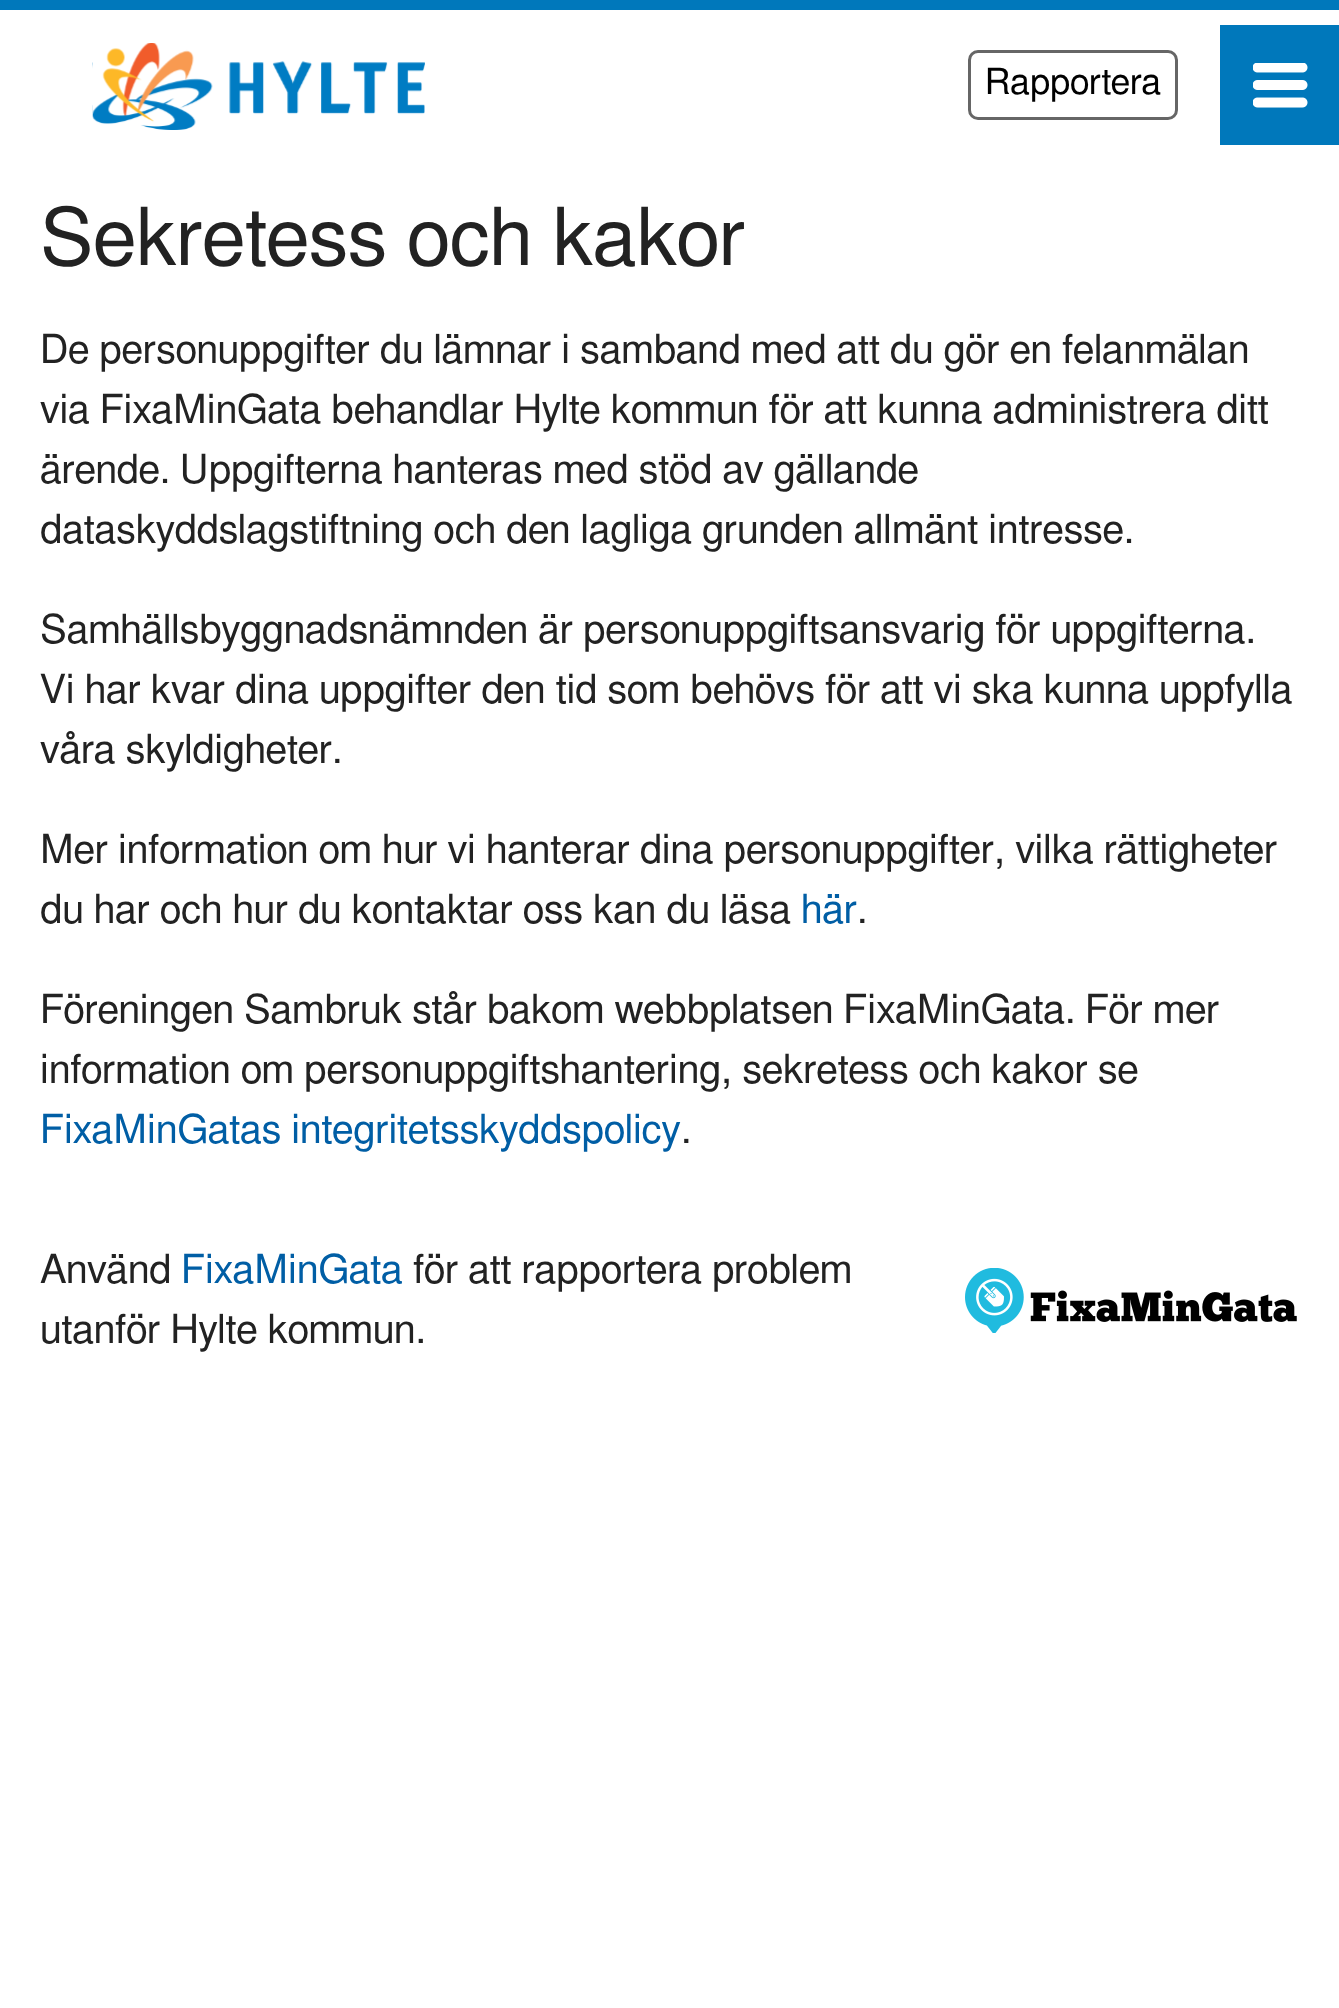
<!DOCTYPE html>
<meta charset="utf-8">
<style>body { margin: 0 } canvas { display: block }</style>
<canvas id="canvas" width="1339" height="2008"></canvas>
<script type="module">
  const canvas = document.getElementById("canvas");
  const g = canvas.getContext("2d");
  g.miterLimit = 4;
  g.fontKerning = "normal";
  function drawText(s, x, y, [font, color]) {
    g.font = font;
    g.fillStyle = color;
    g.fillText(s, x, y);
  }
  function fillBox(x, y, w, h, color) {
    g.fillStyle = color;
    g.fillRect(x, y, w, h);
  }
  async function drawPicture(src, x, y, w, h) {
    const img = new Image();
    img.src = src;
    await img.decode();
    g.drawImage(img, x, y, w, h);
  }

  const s1 = ["36px FreeSans", "#000000"];
  const s2 = ["80px FreeSans", "#222222"];
  const s3 = ["40px FreeSans", "#222222"];
  const s4 = ["40px FreeSans", "#005EA5"];

  fillBox(0, 0, 1339, 2008, "#FFFFFF");
  fillBox(0, 0, 1339, 10, "#0078BB");
  await drawPicture("pic1.png", 92, 43, 333, 87);
  g.beginPath();
  g.roundRect(969.5, 51.5, 207, 67, 8.5);
  g.strokeStyle = "#666666";
  g.lineWidth = 3;
  g.stroke();
  drawText("Rapportera", 985, 94, s1);
  fillBox(1220, 25, 119, 120, "#0078BB");
  await drawPicture("pic2.png", 1253, 63, 55, 45);
  drawText("Sekretess och kakor", 40, 265, s2);
  drawText("De personuppgifter du lämnar i samband med att du gör en felanmälan", 40, 363, s3);
  drawText("via FixaMinGata behandlar Hylte kommun för att kunna administrera ditt", 40, 423, s3);
  drawText("ärende. Uppgifterna hanteras med stöd av gällande", 40, 483, s3);
  drawText("dataskyddslagstiftning och den lagliga grunden allmänt intresse.", 40, 543, s3);
  drawText("Samhällsbyggnadsnämnden är personuppgiftsansvarig för uppgifterna.", 40, 643, s3);
  drawText("Vi har kvar dina uppgifter den tid som behövs för att vi ska kunna uppfylla", 40, 703, s3);
  drawText("våra skyldigheter.", 40, 763, s3);
  drawText("Mer information om hur vi hanterar dina personuppgifter, vilka rättigheter", 40, 863, s3);
  drawText("du har och hur du kontaktar oss kan du läsa", 40, 923, s3);
  drawText("här", 801, 923, s4);
  drawText(".", 857, 923, s3);
  drawText("Föreningen Sambruk står bakom webbplatsen FixaMinGata. För mer", 40, 1023, s3);
  drawText("information om personuppgiftshantering, sekretess och kakor se", 40, 1083, s3);
  drawText("FixaMinGatas integritetsskyddspolicy", 40, 1143, s4);
  drawText(".", 681, 1143, s3);
  drawText("Använd", 40, 1283, s3);
  drawText("FixaMinGata", 181, 1283, s4);
  drawText("för att rapportera problem", 413, 1283, s3);
  drawText("utanför Hylte kommun.", 40, 1343, s3);
  await drawPicture("pic3.png", 965, 1268, 332, 65);
</script>
